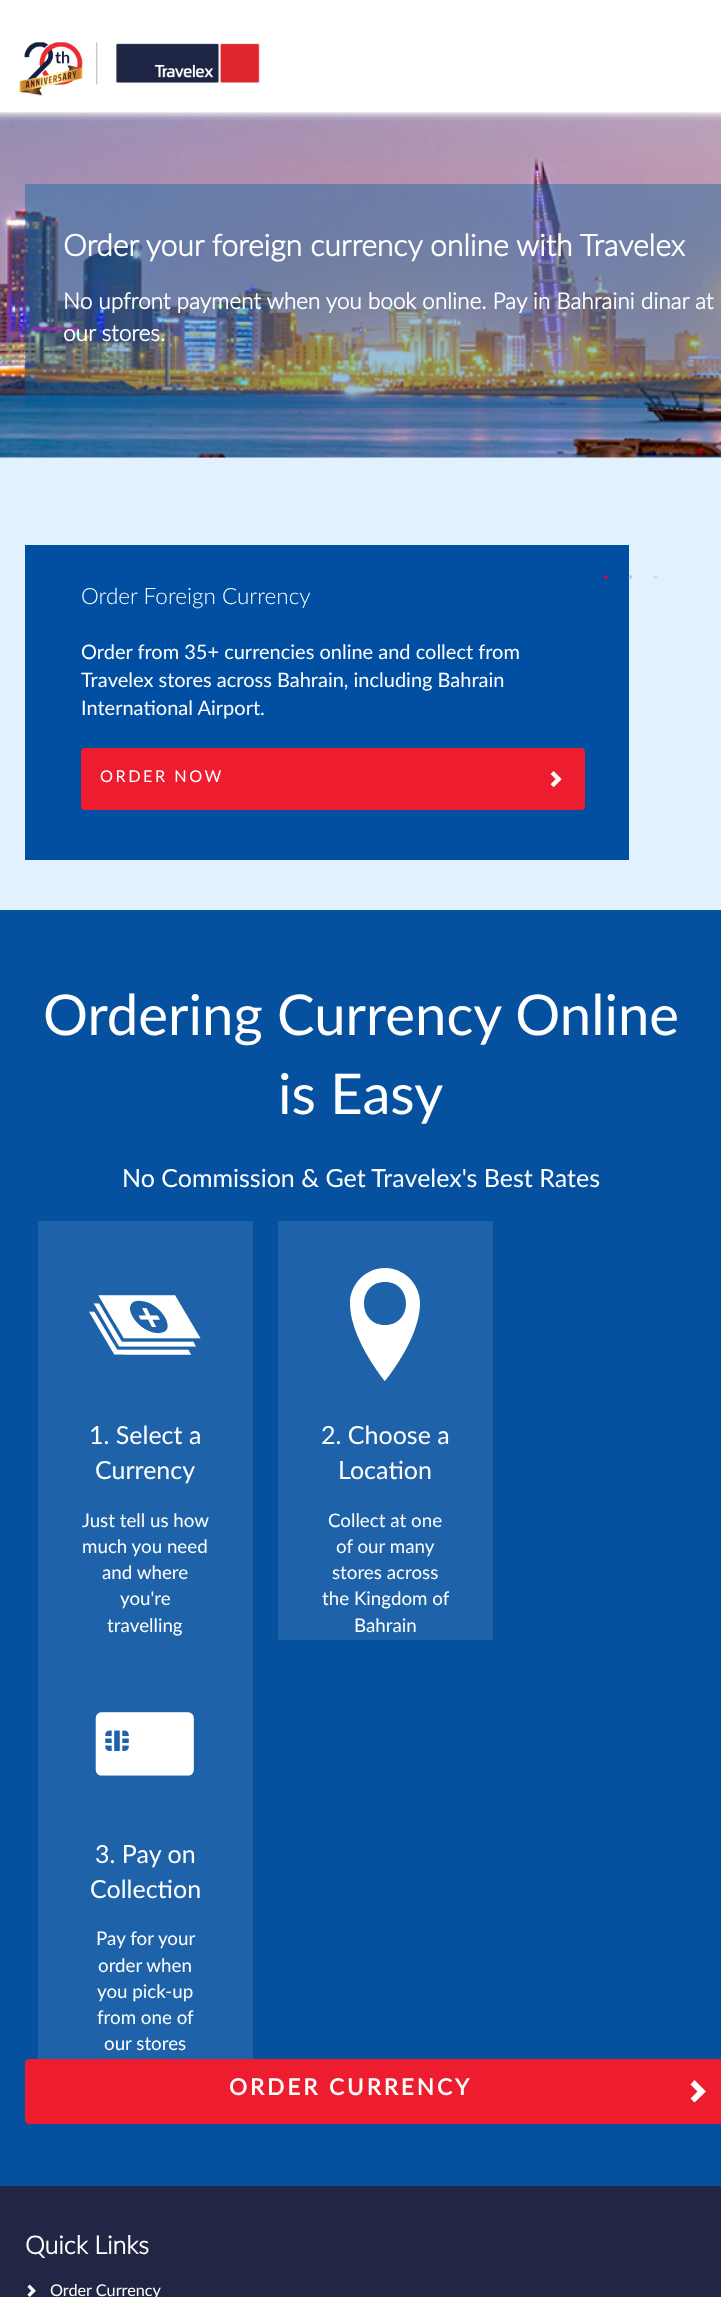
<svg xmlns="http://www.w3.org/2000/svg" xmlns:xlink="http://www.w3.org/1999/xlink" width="721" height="2297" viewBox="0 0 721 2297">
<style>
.cls-1{font:bold 30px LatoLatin;fill:#ffffff}
.cls-2{font:bold 22.5px LatoLatin;fill:#ffffff}
.cls-3{font:15px Liberation Serif;fill:#f00030}
.cls-4{font:15px Liberation Serif;fill:#adccec}
.cls-5{font:15px Liberation Serif;fill:#c3dcf5}
.cls-6{font:300 22.5px LatoLatin;fill:#ffffff}
.cls-7{font:20px LatoLatin;fill:#ffffff}
.cls-8{font:16.25px LatoLatin;letter-spacing:2.5px;fill:#ffffff}
.cls-9{font:56.25px LatoLatin;fill:#ffffff}
.cls-10{font:25px LatoLatin;fill:#ffffff}
.cls-11{font:112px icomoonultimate;fill:#ffffff}
.cls-12{font:18.75px LatoLatin;fill:#ffffff}
.cls-13{font:bold 22.5px 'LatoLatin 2';letter-spacing:3px;fill:#ffffff}
.cls-14{font:bold 25px LatoLatin;fill:#ffffff}
.cls-15{font:16.25px LatoLatin;fill:#ffffff}
</style>
<defs>
<clipPath id="clip1"><path d="M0 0H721V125H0ZM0 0H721V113H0Z" clip-rule="evenodd"/></clipPath>
</defs>
<rect width="100%" height="100%" fill="#ffffff"/>
<rect fill="#e3f1fe" x="0" y="457" width="721" height="453"/>
<image xlink:href="image1.png" x="0" y="112" width="721" height="346"/>
<g clip-path="url(#clip1)">
<rect fill="#eeeeee" filter="blur(3px)" x="-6" y="-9" width="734" height="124"/>
</g>
<image xlink:href="image0.png" x="19" y="42" width="241" height="54"/>
<rect fill="#00629f" fill-opacity="0.4" x="25" y="184" width="696" height="224"/>
<rect fill="#004fa3" x="25" y="545" width="604" height="315"/>
<rect fill="#ed1c2e" x="81" y="748" width="504" height="62" rx="4"/>
<image xlink:href="image2.png" x="550" y="771" width="12" height="17"/>
<rect fill="#05519f" x="0" y="910" width="721" height="1276"/>
<rect fill="#1e63a9" x="38" y="1221" width="215" height="838"/>
<rect fill="#1e63a9" x="278" y="1221" width="215" height="419"/>
<path fill="#ffffff" d="M385 1268C404 1268 420 1284 420 1303C420 1339 385 1381 385 1381C385 1381 350 1339 350 1303C350 1284 366 1268 385 1268ZM385 1325C413 1325 413 1282 385 1282C357 1282 357 1325 385 1325Z"/>
<path fill="#ed1c2e" d="M29 2059H721V2124H29C27 2124 25 2122 25 2120V2063C25 2061 27 2059 29 2059Z"/>
<path fill="#ffffff" d="M694.5 2080L706 2091.5L694.5 2102.5L690.5 2098.5L697.5 2091.5L690.5 2084.5Z"/>
<rect fill="#212644" x="0" y="2186" width="721" height="111"/>
<image xlink:href="image3.png" x="27" y="2284" width="9" height="13"/>
<text class="cls-1" x="63" y="256">Order your foreign currency online with Travelex</text>
<text class="cls-2"><tspan x="63" y="309">No upfront payment when you book online. Pay in Bahraini dinar at</tspan><tspan x="63" y="341">our stores.</tspan></text>
<text class="cls-3" x="603" y="582">•</text>
<text class="cls-4" x="628" y="582">•</text>
<text class="cls-5" x="653" y="582">•</text>
<text class="cls-6" x="81" y="604">Order Foreign Currency</text>
<text class="cls-7"><tspan x="81" y="659">Order from 35+ currencies online and collect from</tspan><tspan x="81" y="687">Travelex stores across Bahrain, including Bahrain</tspan><tspan x="81" y="715">International Airport.</tspan></text>
<text class="cls-8" x="100" y="782">ORDER NOW</text>
<text class="cls-9" x="43" y="1035">Ordering Currency Online</text>
<text class="cls-9" x="278" y="1114">is Easy</text>
<text class="cls-10" x="122" y="1187">No Commission &amp; Get Travelex's Best Rates</text>
<text class="cls-11" x="89" y="1374">*</text>
<text class="cls-10" x="89" y="1444">1. Select a</text>
<text class="cls-10" x="95" y="1479">Currency</text>
<text class="cls-12"><tspan x="82" y="1527">Just tell us how</tspan><tspan x="82" y="1553">much you need</tspan></text>
<text class="cls-12" x="102" y="1579">and where</text>
<text class="cls-12" x="120" y="1605">you're</text>
<text class="cls-12" x="107" y="1632">travelling</text>
<text class="cls-10" x="321" y="1444">2. Choose a</text>
<text class="cls-10" x="338" y="1479">Location</text>
<text class="cls-12" x="328" y="1527">Collect at one</text>
<text class="cls-12" x="336" y="1553">of our many</text>
<text class="cls-12" x="332" y="1579">stores across</text>
<text class="cls-12" x="322" y="1605">the Kingdom of</text>
<text class="cls-12" x="354" y="1632">Bahrain</text>
<text class="cls-11" x="89" y="1793">)</text>
<text class="cls-10" x="95" y="1863">3. Pay on</text>
<text class="cls-10" x="90" y="1898">Collection</text>
<text class="cls-12" x="96" y="1945">Pay for your</text>
<text class="cls-12" x="98" y="1972">order when</text>
<text class="cls-12"><tspan x="97" y="1998">you pick-up</tspan><tspan x="97" y="2024">from one of</tspan></text>
<text class="cls-12" x="104" y="2050">our stores</text>
<text class="cls-13" x="229" y="2095">ORDER CURRENCY</text>
<text class="cls-14" x="25" y="2254">Quick Links</text>
<text class="cls-15" x="50" y="2296">Order Currency</text>
</svg>
